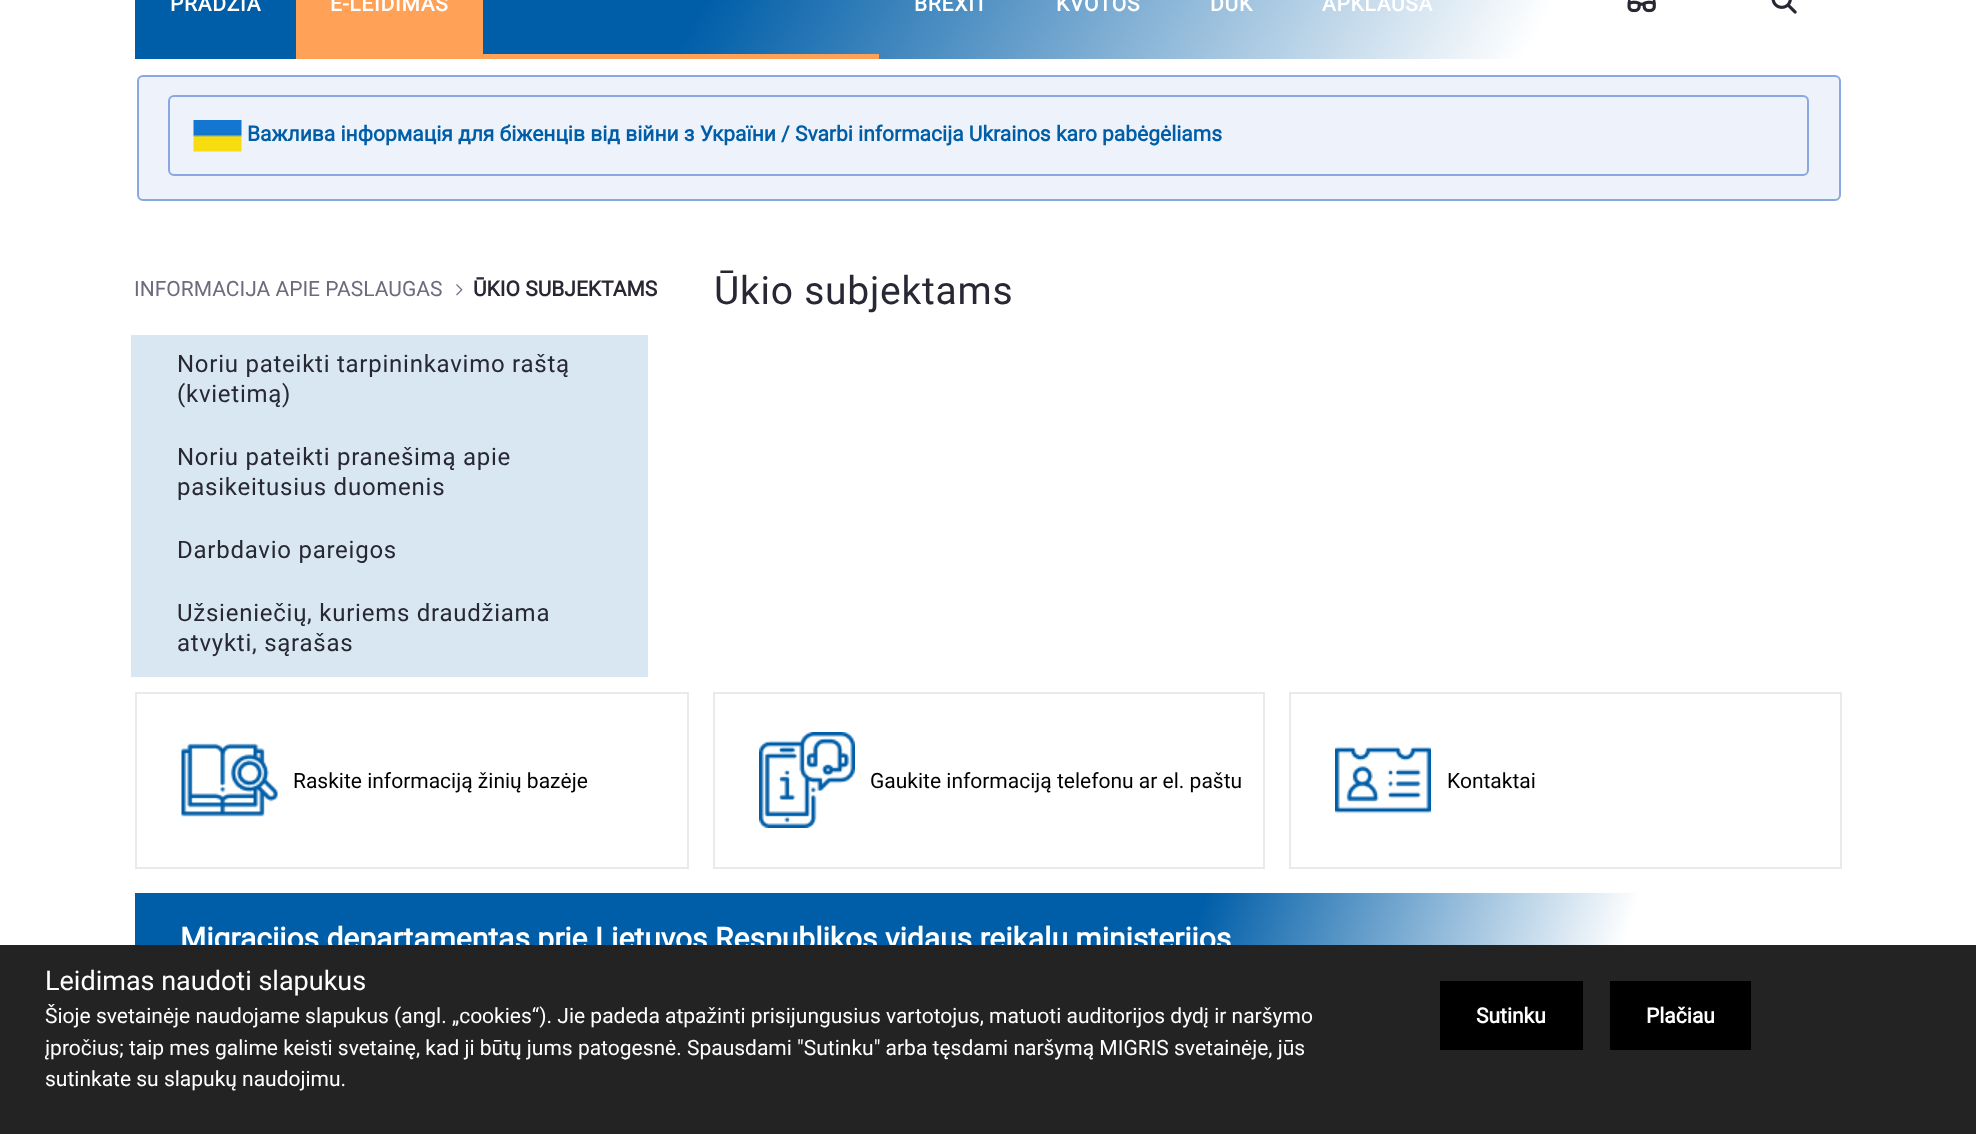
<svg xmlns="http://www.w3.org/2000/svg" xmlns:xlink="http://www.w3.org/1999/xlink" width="1976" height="1134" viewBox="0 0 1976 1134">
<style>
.cls-1{font:bold 21px Roboto;letter-spacing:0.75px;fill:#ffffff}
.cls-2{font:bold 21px Roboto;fill:#005ea8}
.cls-3{font:21px Roboto;fill:#6b6c7e}
.cls-4{font:bold 21px Roboto;fill:#272833}
.cls-5{font:24px Roboto;letter-spacing:0.75px;fill:#272833}
.cls-6{font:39px Roboto;letter-spacing:0.75px;fill:#272833}
.cls-7{font:21px Roboto;fill:#000000}
.cls-8{font:bold 30px Roboto;fill:#ffffff}
.cls-9{font:27px Roboto;fill:#ffffff}
.cls-10{font:21px Roboto;fill:#ffffff}
.cls-11{font:bold 21px Roboto;fill:#ffffff}
</style>
<defs>
<linearGradient id="g1" gradientUnits="userSpaceOnUse" x1="333" y1="-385" x2="1644" y2="392"><stop offset="0.34" stop-color="#005ea8"/><stop offset="0.82" stop-color="#ffffff"/></linearGradient>
<linearGradient id="g2" gradientUnits="userSpaceOnUse" x1="182" y1="759" x2="1795" y2="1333"><stop offset="0.59" stop-color="#005ea8"/><stop offset="0.83" stop-color="#ffffff"/></linearGradient>
</defs>
<rect width="100%" height="100%" fill="#ffffff"/>
<rect fill="url(#g1)" x="135" y="0" width="1414" height="59"/>
<rect fill="#ffa157" x="296" y="0" width="187" height="59"/>
<rect fill="#ffa157" x="483" y="54" width="396" height="5"/>
<image xlink:href="image0.png" x="1627" y="0" width="29" height="13"/>
<image xlink:href="image1.png" x="1771" y="0" width="26" height="14"/>
<rect fill="#eef2fa" stroke="#89a7e0" stroke-width="2" x="138" y="76" width="1702" height="124" rx="5"/>
<rect fill="none" stroke="#89a7e0" stroke-width="2" x="169" y="96" width="1639" height="79" rx="5"/>
<image xlink:href="image2.png" x="193" y="120" width="49" height="32"/>
<image xlink:href="image3.png" x="456" y="284" width="7" height="12"/>
<rect fill="#d9e7f2" x="131" y="335" width="517" height="342"/>
<rect fill="none" stroke="#eaeaea" stroke-width="2" x="136" y="693" width="552" height="175"/>
<image xlink:href="image4.png" x="181" y="743" width="97" height="74"/>
<rect fill="none" stroke="#eaeaea" stroke-width="2" x="714" y="693" width="550" height="175"/>
<image xlink:href="image5.png" x="759" y="732" width="96" height="96"/>
<rect fill="none" stroke="#eaeaea" stroke-width="2" x="1290" y="693" width="551" height="175"/>
<image xlink:href="image6.png" x="1335" y="746" width="96" height="68"/>
<rect fill="url(#g2)" x="135" y="893" width="1503" height="52"/>
<text class="cls-1" x="170" y="11">PRADŽIA</text>
<text class="cls-1" x="330" y="11">E-LEIDIMAS</text>
<text class="cls-1" x="914" y="11">BREXIT</text>
<text class="cls-1" x="1056" y="11">KVOTOS</text>
<text class="cls-1" x="1210" y="11">DUK</text>
<text class="cls-1" x="1322" y="11">APKLAUSA</text>
<text class="cls-2" x="247" y="141">Важлива інформація для біженців від війни з України / Svarbi informacija Ukrainos karo pabėgėliams</text>
<text class="cls-3" x="134" y="296">INFORMACIJA APIE PASLAUGAS</text>
<text class="cls-4" x="473" y="296">ŪKIO SUBJEKTAMS</text>
<text class="cls-5"><tspan x="177" y="372">Noriu pateikti tarpininkavimo raštą</tspan><tspan x="177" y="402">(kvietimą)</tspan></text>
<text class="cls-5"><tspan x="177" y="465">Noriu pateikti pranešimą apie</tspan><tspan x="177" y="495">pasikeitusius duomenis</tspan></text>
<text class="cls-5" x="177" y="558">Darbdavio pareigos</text>
<text class="cls-5"><tspan x="177" y="621">Užsieniečių, kuriems draudžiama</tspan><tspan x="177" y="651">atvykti, sąrašas</tspan></text>
<text class="cls-6" x="714" y="304">Ūkio subjektams</text>
<text class="cls-7" x="293" y="788">Raskite informaciją žinių bazėje</text>
<text class="cls-7" x="870" y="788">Gaukite informaciją telefonu ar el. paštu</text>
<text class="cls-7" x="1447" y="788">Kontaktai</text>
<text class="cls-8" x="180" y="949">Migracijos departamentas prie Lietuvos Respublikos vidaus reikalų ministerijos</text>
<rect fill="#232323" x="0" y="945" width="1976" height="189"/>
<text class="cls-9" x="45" y="990">Leidimas naudoti slapukus</text>
<text class="cls-10"><tspan x="45" y="1023">Šioje svetainėje naudojame slapukus (angl. „cookies“). Jie padeda atpažinti prisijungusius vartotojus, matuoti auditorijos dydį ir naršymo</tspan><tspan x="45" y="1055">įpročius; taip mes galime keisti svetainę, kad ji būtų jums patogesnė. Spausdami "Sutinku" arba tęsdami naršymą MIGRIS svetainėje, jūs</tspan><tspan x="45" y="1086">sutinkate su slapukų naudojimu.</tspan></text>
<rect fill="#000000" x="1440" y="981" width="143" height="69"/>
<text class="cls-11" x="1476" y="1023">Sutinku</text>
<rect fill="#000000" x="1610" y="981" width="141" height="69"/>
<text class="cls-11" x="1646" y="1023">Plačiau</text>
</svg>
